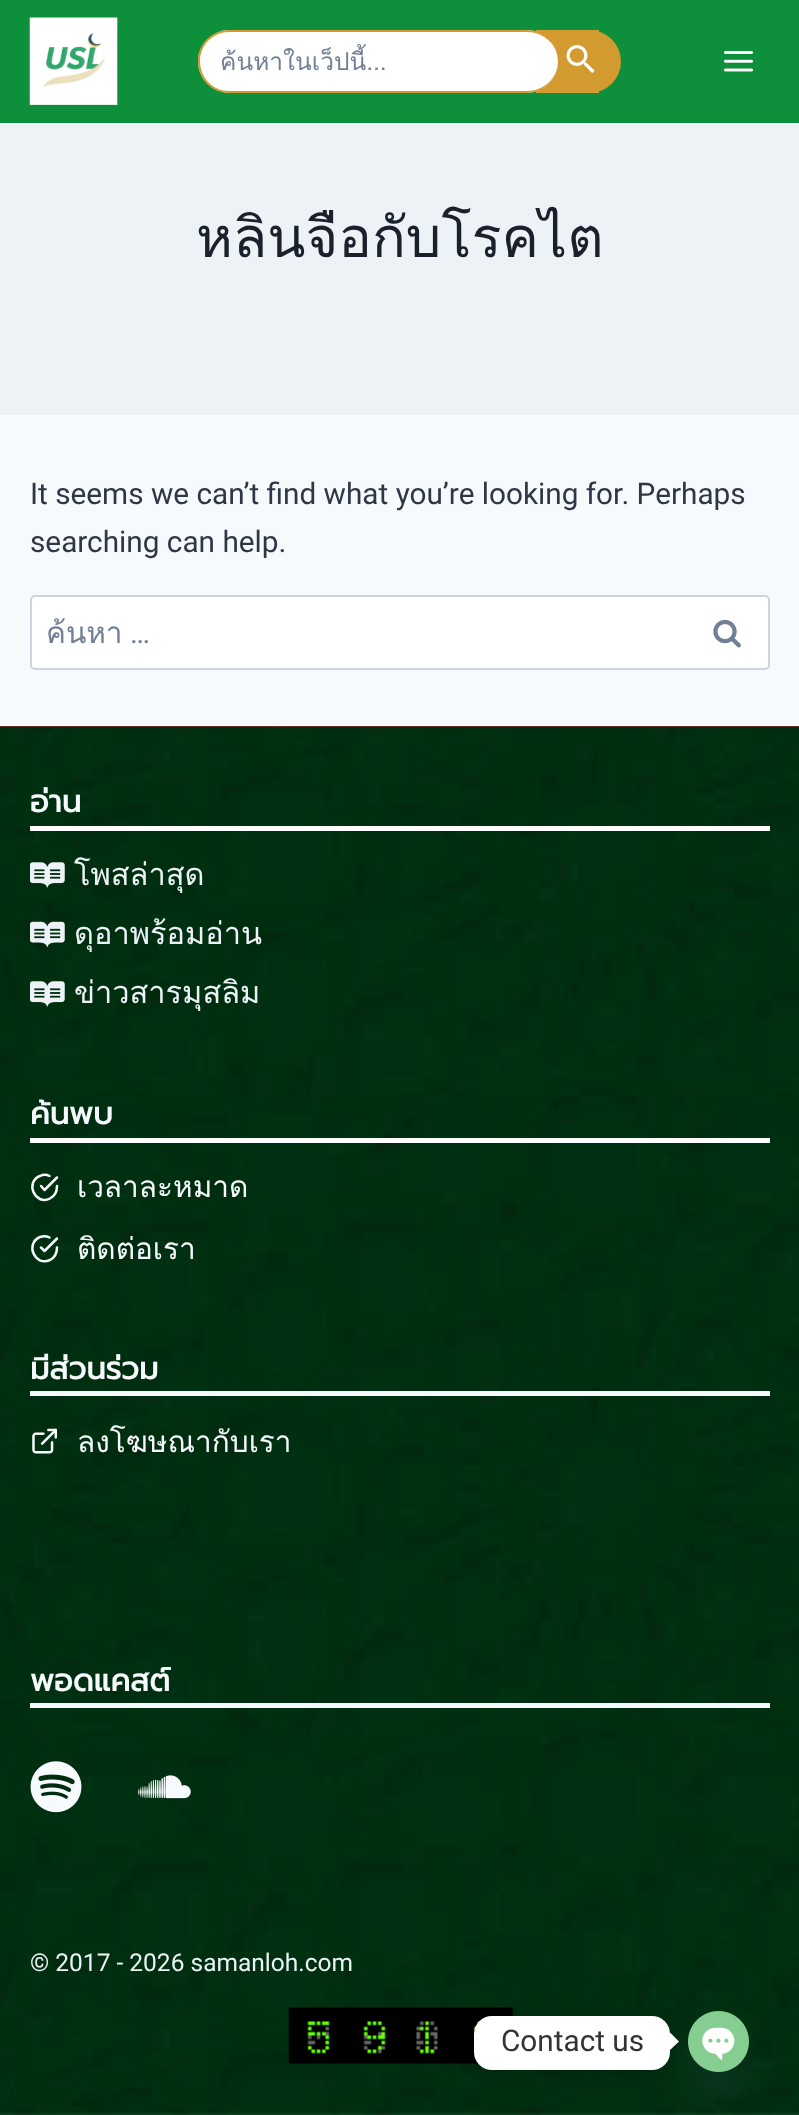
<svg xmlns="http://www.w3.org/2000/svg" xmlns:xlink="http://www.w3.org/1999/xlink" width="799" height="2115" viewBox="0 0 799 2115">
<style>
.cls-1{font:24.5px Loma;fill:#718096}
.cls-2{font:56px Loma;fill:#1a202c}
.cls-3{font:29.75px Roboto;fill:#2d3748}
.cls-4{font:29.75px Loma;fill:#718096}
.cls-5{font:29.75px Roboto;fill:#718096}
.cls-6{font:bold 30.75px Prompt;fill:#f7fafc}
.cls-7{font:30.75px Loma;fill:#edf2f7}
.cls-8{font:29.75px Loma;fill:#f7fafc}
.cls-9{font:24.5px Roboto;fill:#edf2f7}
.cls-10{font:29.75px Roboto;fill:#333333}
</style>
<defs>
<clipPath id="clip1"><rect x="221" y="42" width="316" height="39"/></clipPath>
<clipPath id="clip2"><rect x="47" y="607" width="588" height="48"/></clipPath>
</defs>
<rect width="100%" height="100%" fill="#f7fafc"/>
<rect fill="#0d8f3b" x="0" y="0" width="799" height="123"/>
<image xlink:href="image0.png" x="29" y="17" width="89" height="88"/>
<circle fill="#d39a30" cx="589.5" cy="61.5" r="31.5"/>
<rect fill="#d39a30" x="536" y="30" width="63" height="63"/>
<rect fill="#ffffff" x="198" y="30" width="360" height="63" rx="31.5"/>
<path fill="#d39a30" fill-rule="evenodd" d="M229 30H527C544 30 558 44 558 61C558 79 544 93 527 93H229C212 93 198 79 198 61C198 44 212 30 229 30ZM229 32H527C544 32 558 45 558 61C558 78 544 91 527 91H229C213 91 200 78 200 61C200 45 213 32 229 32Z"/>
<image xlink:href="image1.png" x="566" y="45" width="29" height="28"/>
<image xlink:href="image2.png" x="723" y="51" width="31" height="21"/>
<rect fill="#edf2f7" x="0" y="123" width="799" height="292"/>
<rect fill="#ffffff" stroke="#cbd5e0" stroke-width="2" x="31" y="596" width="738" height="73" rx="4"/>
<image xlink:href="image3.png" x="713" y="619" width="28" height="29"/>
<rect fill="#c13131" x="0" y="726" width="799" height="1"/>
<image xlink:href="image4.png" x="0" y="726" width="799" height="1389"/>
<rect fill="#ffffff" x="30" y="826" width="740" height="5"/>
<image xlink:href="image5.png" x="30" y="862" width="35" height="26"/>
<image xlink:href="image6.png" x="30" y="921" width="35" height="27"/>
<image xlink:href="image7.png" x="30" y="981" width="35" height="26"/>
<rect fill="#ffffff" x="30" y="1138" width="740" height="5"/>
<path fill="none" stroke="#f7fafc" stroke-width="2.5" stroke-linecap="round" stroke-linejoin="round" d="M57 1186C57 1191.5 55 1196 50 1198.5C35 1206 24.5 1182 40 1176C43 1174.5 46.5 1174.5 49.5 1176M57 1177.5L44.5 1190L41 1186"/>
<path fill="none" stroke="#f7fafc" stroke-width="2.5" stroke-linecap="round" stroke-linejoin="round" d="M57 1247.5C57 1252.5 55 1257.5 50 1260C35 1267 24.5 1243.5 40 1237C43 1236 46.5 1236 49.5 1237.5M57 1238.5L44.5 1251L41 1247.5"/>
<rect fill="#f7fafc" x="30" y="1391" width="740" height="5"/>
<image xlink:href="image8.png" x="32" y="1428" width="26" height="26"/>
<rect fill="#f7fafc" x="30" y="1703" width="740" height="5"/>
<image xlink:href="image9.png" x="30" y="1761" width="52" height="52"/>
<image xlink:href="image10.png" x="138" y="1775" width="53" height="24"/>
<image xlink:href="image11.png" x="288" y="2007" width="225" height="57"/>
<rect fill="#000000" fill-opacity="0.15" filter="blur(7px)" x="474" y="2018" width="196" height="54" rx="18"/>
<rect fill="#ffffff" x="474" y="2016" width="196" height="54" rx="18"/>
<path fill="#ffffff" d="M670 2050V2032.5L679 2041.5Z"/>
<rect fill="#49687e" fill-opacity="0.16" filter="blur(21px)" x="688" y="2039" width="61" height="61" rx="30.5"/>
<image xlink:href="image12.png" x="688" y="2011" width="61" height="61"/>
<g clip-path="url(#clip1)">
<text class="cls-1" x="220" y="70">ค้นหาในเว็ปนี้...</text>
</g>
<text class="cls-2" x="196" y="257">หลินจือกับโรคไต</text>
<text class="cls-3"><tspan x="30" y="504">It seems we can’t find what you’re looking for. Perhaps</tspan><tspan x="30" y="552">searching can help.</tspan></text>
<g clip-path="url(#clip2)">
<text class="cls-4" x="46" y="643">ค้นหา</text>
</g>
<text class="cls-5" x="130" y="643">…</text>
<text class="cls-6" x="30" y="812">อ่าน</text>
<text class="cls-7"><tspan x="74" y="885">โพสล่าสุด</tspan><tspan x="74" y="944">ดุอาพร้อมอ่าน</tspan><tspan x="74" y="1003">ข่าวสารมุสลิม</tspan></text>
<text class="cls-6" x="30" y="1124">ค้นพบ</text>
<text class="cls-8" x="77" y="1197">เวลาละหมาด</text>
<text class="cls-8" x="77" y="1259">ติดต่อเรา</text>
<text class="cls-6" x="30" y="1379">มีส่วนร่วม</text>
<text class="cls-8" x="77" y="1452">ลงโฆษณากับเรา</text>
<text class="cls-6" x="30" y="1691">พอดแคสต์</text>
<text class="cls-9" x="30" y="1971">© 2017 - 2026 samanloh.com</text>
<text class="cls-10" x="501" y="2051">Contact us</text>
</svg>
